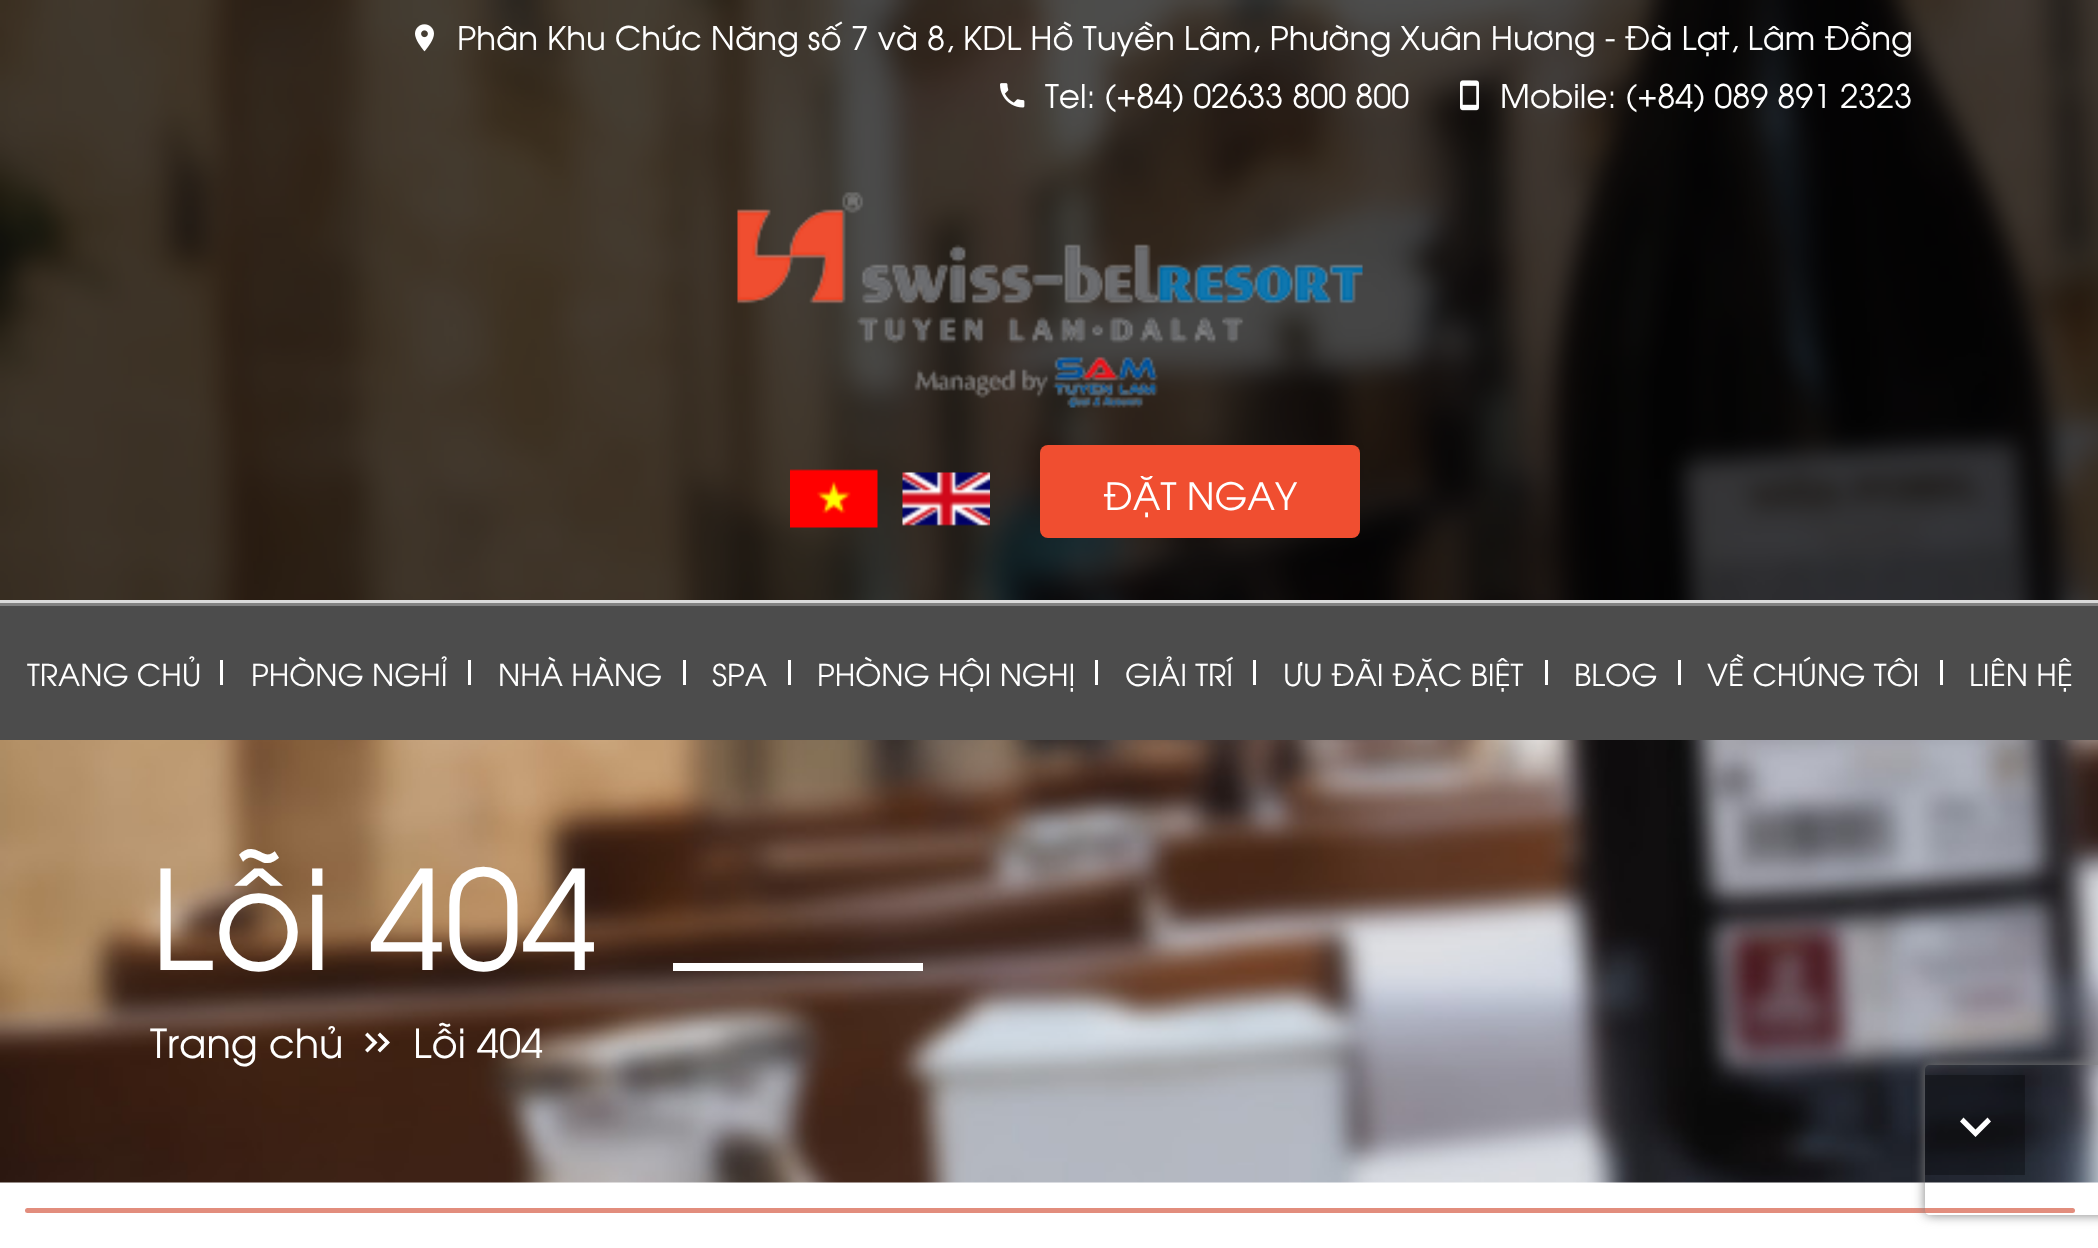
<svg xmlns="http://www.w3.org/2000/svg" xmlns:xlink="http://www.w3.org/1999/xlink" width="2098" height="1248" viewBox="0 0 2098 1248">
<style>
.cls-1{font:32.5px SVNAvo;fill:#ffffff}
.cls-2{font:37.5px SVNAvo;fill:#ffffff}
.cls-3{font:30px SVNAvo;fill:#ffffff}
.cls-4{font:137.5px SVNAvo;fill:#ffffff}
.cls-5{font:40px SVNAvo;fill:#ffffff}
</style>
<defs>
<clipPath id="clip1"><path d="M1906 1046H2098V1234H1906ZM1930 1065H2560C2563 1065 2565 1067 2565 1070V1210C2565 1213 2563 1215 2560 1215H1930C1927 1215 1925 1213 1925 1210V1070C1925 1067 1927 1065 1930 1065Z" clip-rule="evenodd"/></clipPath>
</defs>
<rect width="100%" height="100%" fill="#ffffff"/>
<image xlink:href="image6.png" x="0" y="0" width="2098" height="1183"/>
<rect fill="#000000" fill-opacity="0.7" x="0" y="0" width="2098" height="128"/>
<image xlink:href="image0.png" x="415" y="24" width="19" height="28"/>
<image xlink:href="image1.png" x="1000" y="83" width="25" height="25"/>
<image xlink:href="image2.png" x="1460" y="80" width="19" height="31"/>
<rect fill="#000000" fill-opacity="0.7" x="0" y="128" width="2098" height="472"/>
<rect fill="#dadada" x="0" y="600" width="2098" height="3"/>
<image xlink:href="image3.png" x="737" y="192" width="626" height="216"/>
<image xlink:href="image4.png" x="790" y="469" width="88" height="59"/>
<image xlink:href="image5.png" x="902" y="472" width="88" height="54"/>
<rect fill="#f04e30" x="1040" y="445" width="320" height="93" rx="8"/>
<rect fill="#4c4c4c" x="0" y="606" width="2098" height="134"/>
<rect fill="#818181" x="0" y="603" width="2098" height="3"/>
<rect fill="#ffffff" x="220" y="660" width="3" height="25"/>
<rect fill="#ffffff" x="468" y="660" width="3" height="25"/>
<rect fill="#ffffff" x="683" y="660" width="3" height="25"/>
<rect fill="#ffffff" x="788" y="660" width="3" height="25"/>
<rect fill="#ffffff" x="1095" y="660" width="3" height="25"/>
<rect fill="#ffffff" x="1253" y="660" width="3" height="25"/>
<rect fill="#ffffff" x="1545" y="660" width="3" height="25"/>
<rect fill="#ffffff" x="1678" y="660" width="3" height="25"/>
<rect fill="#ffffff" x="1940" y="660" width="3" height="25"/>
<rect fill="#ffffff" x="673" y="963" width="250" height="8"/>
<path fill="#ffffff" d="M367.5 1032.5L377.5 1042.5L367.5 1052.5L365 1050L372.5 1042.5L365 1035Z"/>
<path fill="#ffffff" d="M380 1032.5L390 1042.5L380 1052.5L377.5 1050L385 1042.5L377.5 1035Z"/>
<rect fill="#000000" fill-opacity="0.3" x="1925" y="1075" width="100" height="100"/>
<path fill="#ffffff" d="M1987.5 1117.5L1991 1121.5L1975.5 1137L1960 1121.5L1963.5 1117.5L1975.5 1129.5Z"/>
<rect fill="#e28d7d" x="25" y="1208" width="2050" height="5" rx="2.5"/>
<g clip-path="url(#clip1)">
<rect fill="#808080" filter="blur(6px)" x="1925" y="1065" width="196" height="150" rx="5"/>
</g>
<text class="cls-1" x="457" y="50">Phân Khu Chức Năng số 7 và 8, KDL Hồ Tuyền Lâm, Phường Xuân Hương - Đà Lạt, Lâm Đồng</text>
<text class="cls-1" x="1045" y="108">Tel: (+84) 02633 800 800</text>
<text class="cls-1" x="1500" y="108">Mobile: (+84) 089 891 2323</text>
<text class="cls-2" x="1103" y="510">ĐẶT NGAY</text>
<text class="cls-3" x="27" y="686">TRANG CHỦ</text>
<text class="cls-3" x="251" y="686">PHÒNG NGHỈ</text>
<text class="cls-3" x="498" y="686">NHÀ HÀNG</text>
<text class="cls-3" x="712" y="686">SPA</text>
<text class="cls-3" x="817" y="686">PHÒNG HỘI NGHỊ</text>
<text class="cls-3" x="1125" y="686">GIẢI TRÍ</text>
<text class="cls-3" x="1283" y="686">ƯU ĐÃI ĐẶC BIỆT</text>
<text class="cls-3" x="1574" y="686">BLOG</text>
<text class="cls-3" x="1707" y="686">VỀ CHÚNG TÔI</text>
<text class="cls-3" x="1969" y="686">LIÊN HỆ</text>
<text class="cls-4" x="150" y="970">Lỗi 404</text>
<text class="cls-5" x="150" y="1058">Trang chủ</text>
<text class="cls-5" x="413" y="1058">Lỗi 404</text>
</svg>
